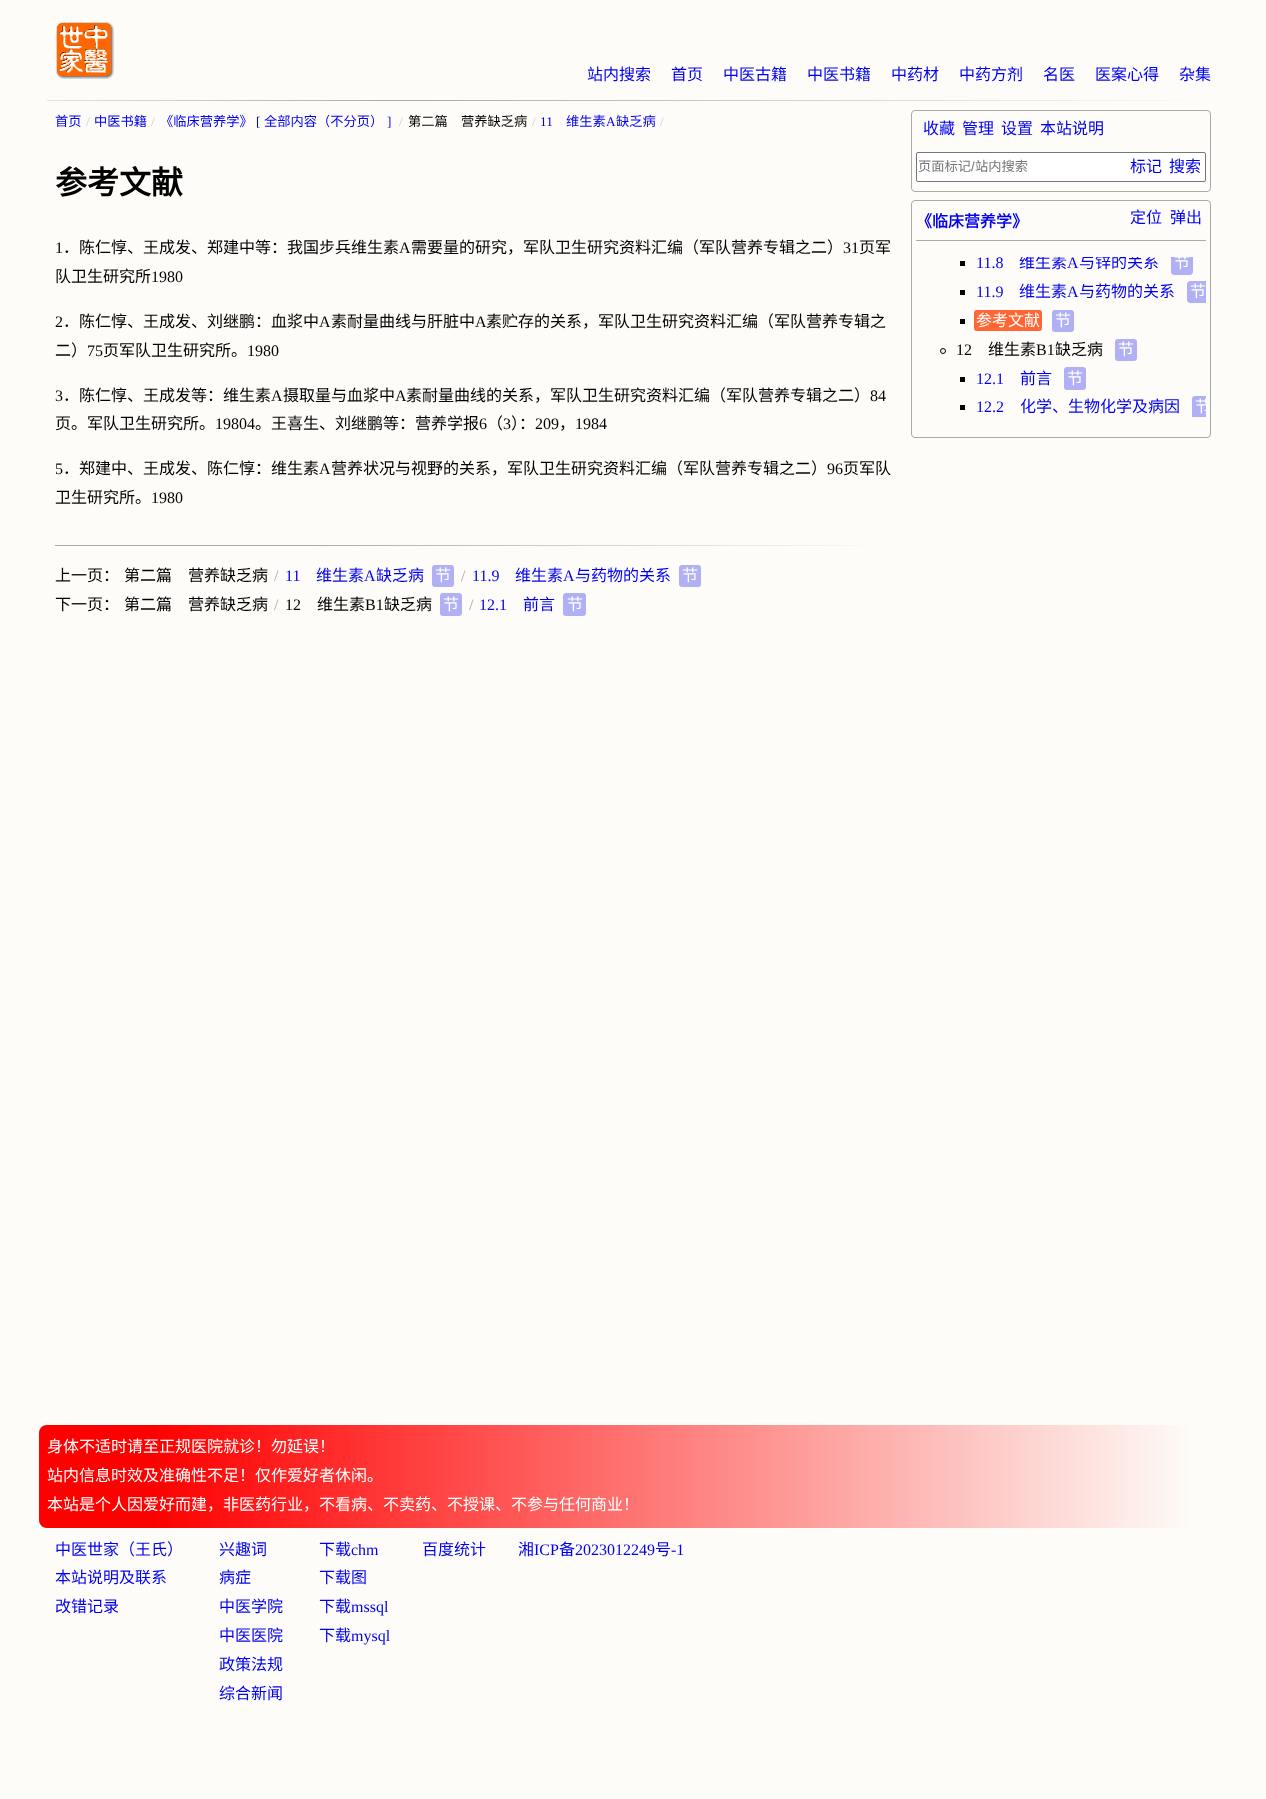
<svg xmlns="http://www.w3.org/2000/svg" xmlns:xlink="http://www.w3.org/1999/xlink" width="1266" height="1799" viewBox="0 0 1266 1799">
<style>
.cls-1{font:16px Noto Sans CJK SC;fill:#0000ee}
.cls-2{font:13.25px Noto Sans CJK SC;fill:#0000ee}
.cls-3{font:13.25px Liberation Serif;fill:#cccccc}
.cls-4{font:13.25px Liberation Serif;fill:#0000ee}
.cls-5{font:13.25px Noto Sans CJK SC;fill:#000000}
.cls-6{font:bold 32px Noto Sans CJK SC;fill:#000000}
.cls-7{font:16px Liberation Serif;fill:#000000}
.cls-8{font:16px Noto Sans CJK SC;fill:#000000}
.cls-9{font:16px Liberation Serif;fill:#aaaaaa}
.cls-10{font:16px Liberation Serif;fill:#0000ee}
.cls-11{font:16px Noto Sans CJK SC;fill:#ffffff}
.cls-12{font:13.25px Noto Sans CJK SC;fill:#757575}
.cls-13{font:13.25px Liberation Sans;fill:#757575}
.cls-14{font:bold 16px Noto Sans CJK SC;fill:#0000ee}
</style>
<defs>
<clipPath id="clip1"><rect x="916" y="257" width="290" height="160"/></clipPath>
<linearGradient id="g1" gradientUnits="userSpaceOnUse" x1="39" y1="1477" x2="1195" y2="1477"><stop offset="0.1" stop-color="#ff0000"/><stop offset="1" stop-color="#fdfcf8"/></linearGradient>
</defs>
<rect width="100%" height="100%" fill="#fdfcf8"/>
<image xlink:href="image0.png" x="47" y="100" width="1136" height="1"/>
<image xlink:href="image1.png" x="56" y="22" width="58" height="57"/>
<image xlink:href="image2.png" x="55" y="545" width="806" height="1"/>
<rect fill="#b1b0f5" x="432" y="565" width="22" height="22" rx="3"/>
<rect fill="#b1b0f5" x="679" y="565" width="22" height="22" rx="3"/>
<rect fill="#b1b0f5" x="440" y="593" width="22" height="23" rx="3"/>
<rect fill="#b1b0f5" x="563" y="593" width="23" height="23" rx="3"/>
<rect fill="none" stroke="#aaaaaa" x="911.5" y="110.5" width="299" height="81" rx="3.5"/>
<rect fill="#ffffff" stroke="#767676" x="916.5" y="152.5" width="289" height="29" rx="1.5"/>
<rect fill="none" stroke="#aaaaaa" x="911.5" y="200.5" width="299" height="237" rx="3.5"/>
<rect fill="#aaaaaa" x="916" y="240" width="290" height="1"/>
<rect fill="#000000" x="960" y="261" width="5" height="5"/>
<path fill="#b1b0f5" d="M1171 257H1193V272C1193 273.5 1191.5 275 1190 275H1174C1172.5 275 1171 273.5 1171 272Z"/>
<rect fill="#000000" x="960" y="290" width="5" height="5"/>
<path fill="#b1b0f5" d="M1190 281H1206V303H1190C1188.5 303 1187 301.5 1187 300V284C1187 282.5 1188.5 281 1190 281Z"/>
<rect fill="#000000" x="960" y="319" width="5" height="5"/>
<rect fill="none" stroke="#ff6633" stroke-width="2" x="975" y="311" width="66" height="19" rx="2"/>
<rect fill="#ff6633" x="976" y="312" width="64" height="17" rx="1"/>
<rect fill="#b1b0f5" x="1052" y="310" width="22" height="22" rx="3"/>
<circle fill="none" stroke="#000000" cx="943" cy="351" r="2.5"/>
<rect fill="#b1b0f5" x="1115" y="339" width="22" height="22" rx="3"/>
<rect fill="#000000" x="960" y="377" width="5" height="5"/>
<rect fill="#b1b0f5" x="1064" y="367" width="22" height="23" rx="3"/>
<rect fill="#000000" x="960" y="405" width="5" height="5"/>
<g clip-path="url(#clip1)">
<rect fill="#b1b0f5" x="1192" y="396" width="22" height="23" rx="3"/>
</g>
<path fill="url(#g1)" d="M47 1425H1195V1528H47C42.5 1528 39 1524.5 39 1520V1433C39 1428.5 42.5 1425 47 1425Z"/>
<text class="cls-1" x="587" y="80">站内搜索</text>
<text class="cls-1" x="671" y="80">首页</text>
<text class="cls-1" x="723" y="80">中医古籍</text>
<text class="cls-1" x="807" y="80">中医书籍</text>
<text class="cls-1" x="891" y="80">中药材</text>
<text class="cls-1" x="959" y="80">中药方剂</text>
<text class="cls-1" x="1043" y="80">名医</text>
<text class="cls-1" x="1095" y="80">医案心得</text>
<text class="cls-1" x="1179" y="80">杂集</text>
<text class="cls-2" x="55" y="126">首页</text>
<text class="cls-3" x="86" y="126">/</text>
<text class="cls-2" x="94" y="126">中医书籍</text>
<text class="cls-3" x="151" y="126">/</text>
<text class="cls-2" x="160" y="126">《临床营养学》</text>
<text class="cls-4" x="256" y="126">[</text>
<text class="cls-2" x="264" y="126">全部内容（不分页）</text>
<text class="cls-4" x="387" y="126">]</text>
<text class="cls-3" x="399" y="126">/</text>
<text class="cls-5" x="408" y="126">第二篇　营养缺乏病</text>
<text class="cls-3" x="532" y="126">/</text>
<text class="cls-4" x="540" y="126">11</text>
<text class="cls-2" x="566" y="126">维生素</text>
<text class="cls-4" x="606" y="126">A</text>
<text class="cls-2" x="616" y="126">缺乏病</text>
<text class="cls-3" x="660" y="126">/</text>
<text class="cls-6" x="55" y="194">参考文献</text>
<text class="cls-7" x="55" y="253">1</text>
<text class="cls-8" x="63" y="253">．陈仁惇、王成发、郑建中等：我国步兵维生素</text>
<text class="cls-7" x="399" y="253">A</text>
<text class="cls-8" x="411" y="253">需要量的研究，军队卫生研究资料汇编（军队营养专辑之二）</text>
<text class="cls-7" x="843" y="253">31</text>
<text class="cls-8" x="859" y="253">页军</text>
<text class="cls-8" x="55" y="282">队卫生研究所</text>
<text class="cls-7" x="151" y="282">1980</text>
<text class="cls-7" x="55" y="327">2</text>
<text class="cls-8" x="63" y="327">．陈仁惇、王成发、刘继鹏：血浆中</text>
<text class="cls-7" x="319" y="327">A</text>
<text class="cls-8" x="331" y="327">素耐量曲线与肝脏中</text>
<text class="cls-7" x="475" y="327">A</text>
<text class="cls-8" x="486" y="327">素贮存的关系，军队卫生研究资料汇编（军队营养专辑之</text>
<text class="cls-8" x="55" y="356">二）</text>
<text class="cls-7" x="87" y="356">75</text>
<text class="cls-8" x="103" y="356">页军队卫生研究所。</text>
<text class="cls-7" x="247" y="356">1980</text>
<text class="cls-7" x="55" y="401">3</text>
<text class="cls-8" x="63" y="401">．陈仁惇、王成发等：维生素</text>
<text class="cls-7" x="271" y="401">A</text>
<text class="cls-8" x="283" y="401">摄取量与血浆中</text>
<text class="cls-7" x="395" y="401">A</text>
<text class="cls-8" x="406" y="401">素耐量曲线的关系，军队卫生研究资料汇编（军队营养专辑之二）</text>
<text class="cls-7" x="870" y="401">84</text>
<text class="cls-8" x="55" y="429">页。军队卫生研究所。</text>
<text class="cls-7" x="215" y="429">19804</text>
<text class="cls-8" x="255" y="429">。王喜生、刘继鹏等：营养学报</text>
<text class="cls-7" x="479" y="429">6</text>
<text class="cls-8" x="487" y="429">（</text>
<text class="cls-7" x="503" y="429">3</text>
<text class="cls-8" x="511" y="429">）：</text>
<text class="cls-7" x="535" y="429">209</text>
<text class="cls-8" x="559" y="429">，</text>
<text class="cls-7" x="575" y="429">1984</text>
<text class="cls-7" x="55" y="474">5</text>
<text class="cls-8" x="63" y="474">．郑建中、王成发、陈仁惇：维生素</text>
<text class="cls-7" x="319" y="474">A</text>
<text class="cls-8" x="331" y="474">营养状况与视野的关系，军队卫生研究资料汇编（军队营养专辑之二）</text>
<text class="cls-7" x="827" y="474">96</text>
<text class="cls-8" x="843" y="474">页军队</text>
<text class="cls-8" x="55" y="503">卫生研究所。</text>
<text class="cls-7" x="151" y="503">1980</text>
<text class="cls-8" x="55" y="581">上一页：</text>
<text class="cls-8" x="124" y="581">第二篇　营养缺乏病</text>
<text class="cls-9" x="274" y="581">/</text>
<text class="cls-10" x="285" y="581">11</text>
<text class="cls-1" x="316" y="581">维生素</text>
<text class="cls-10" x="364" y="581">A</text>
<text class="cls-1" x="376" y="581">缺乏病</text>
<text class="cls-11" x="435" y="581">节</text>
<text class="cls-9" x="461" y="581">/</text>
<text class="cls-10" x="472" y="581">11.9</text>
<text class="cls-1" x="515" y="581">维生素</text>
<text class="cls-10" x="563" y="581">A</text>
<text class="cls-1" x="575" y="581">与药物的关系</text>
<text class="cls-11" x="682" y="581">节</text>
<text class="cls-8" x="55" y="610">下一页：</text>
<text class="cls-8" x="124" y="610">第二篇　营养缺乏病</text>
<text class="cls-9" x="274" y="610">/</text>
<text class="cls-7" x="285" y="610">12</text>
<text class="cls-8" x="317" y="610">维生素</text>
<text class="cls-7" x="365" y="610">B1</text>
<text class="cls-8" x="384" y="610">缺乏病</text>
<text class="cls-11" x="443" y="610">节</text>
<text class="cls-9" x="469" y="610">/</text>
<text class="cls-10" x="479" y="610">12.1</text>
<text class="cls-1" x="523" y="610">前言</text>
<text class="cls-11" x="567" y="610">节</text>
<text class="cls-1" x="923" y="134">收藏</text>
<text class="cls-1" x="962" y="134">管理</text>
<text class="cls-1" x="1001" y="134">设置</text>
<text class="cls-1" x="1040" y="134">本站说明</text>
<text class="cls-12" x="918" y="171">页面标记</text>
<text class="cls-13" x="971" y="171">/</text>
<text class="cls-12" x="975" y="171">站内搜索</text>
<text class="cls-1" x="1130" y="172">标记</text>
<text class="cls-1" x="1169" y="172">搜索</text>
<text class="cls-14" x="916" y="227">《临床营养学》</text>
<text class="cls-1" x="1130" y="223">定位</text>
<text class="cls-1" x="1170" y="223">弹出</text>
<text class="cls-10" x="976" y="268">11.8</text>
<g clip-path="url(#clip1)">
<text class="cls-1" x="1019" y="268">维生素</text>
</g>
<text class="cls-10" x="1067" y="268">A</text>
<g clip-path="url(#clip1)">
<text class="cls-1" x="1079" y="268">与锌的关系</text>
<text class="cls-11" x="1174" y="268">节</text>
</g>
<text class="cls-10" x="976" y="297">11.9</text>
<text class="cls-1" x="1019" y="297">维生素</text>
<text class="cls-10" x="1067" y="297">A</text>
<text class="cls-1" x="1079" y="297">与药物的关系</text>
<text class="cls-11" x="1190" y="297">节</text>
<text class="cls-11" x="976" y="326">参考文献</text>
<text class="cls-11" x="1055" y="326">节</text>
<text class="cls-7" x="956" y="355">12</text>
<text class="cls-8" x="988" y="355">维生素</text>
<text class="cls-7" x="1036" y="355">B1</text>
<text class="cls-8" x="1055" y="355">缺乏病</text>
<text class="cls-11" x="1118" y="355">节</text>
<text class="cls-10" x="976" y="384">12.1</text>
<text class="cls-1" x="1020" y="384">前言</text>
<text class="cls-11" x="1067" y="384">节</text>
<text class="cls-10" x="976" y="412">12.2</text>
<text class="cls-1" x="1020" y="412">化学、生物化学及病因</text>
<g clip-path="url(#clip1)">
<text class="cls-11" x="1195" y="412">节</text>
</g>
<text class="cls-11"><tspan x="47" y="1452">身体不适时请至正规医院就诊！勿延误！</tspan><tspan x="47" y="1481">站内信息时效及准确性不足！仅作爱好者休闲。</tspan><tspan x="47" y="1510">本站是个人因爱好而建，非医药行业，不看病、不卖药、不授课、不参与任何商业！</tspan></text>
<text class="cls-1"><tspan x="55" y="1555">中医世家（王氏）</tspan><tspan x="55" y="1583">本站说明及联系</tspan><tspan x="55" y="1612">改错记录</tspan></text>
<text class="cls-1"><tspan x="219" y="1555">兴趣词</tspan><tspan x="219" y="1583">病症</tspan><tspan x="219" y="1612">中医学院</tspan><tspan x="219" y="1641">中医医院</tspan><tspan x="219" y="1670">政策法规</tspan><tspan x="219" y="1699">综合新闻</tspan></text>
<text class="cls-1" x="319" y="1555">下载</text>
<text class="cls-10" x="351" y="1555">chm</text>
<text class="cls-1"><tspan x="319" y="1583">下载图</tspan><tspan x="319" y="1612">下载</tspan></text>
<text class="cls-10" x="351" y="1612">mssql</text>
<text class="cls-1" x="319" y="1641">下载</text>
<text class="cls-10" x="351" y="1641">mysql</text>
<text class="cls-1" x="422" y="1555">百度统计</text>
<text class="cls-1" x="518" y="1555">湘</text>
<text class="cls-10" x="534" y="1555">ICP</text>
<text class="cls-1" x="559" y="1555">备</text>
<text class="cls-10" x="575" y="1555">2023012249</text>
<text class="cls-1" x="655" y="1555">号</text>
<text class="cls-10" x="671" y="1555">-1</text>
</svg>
